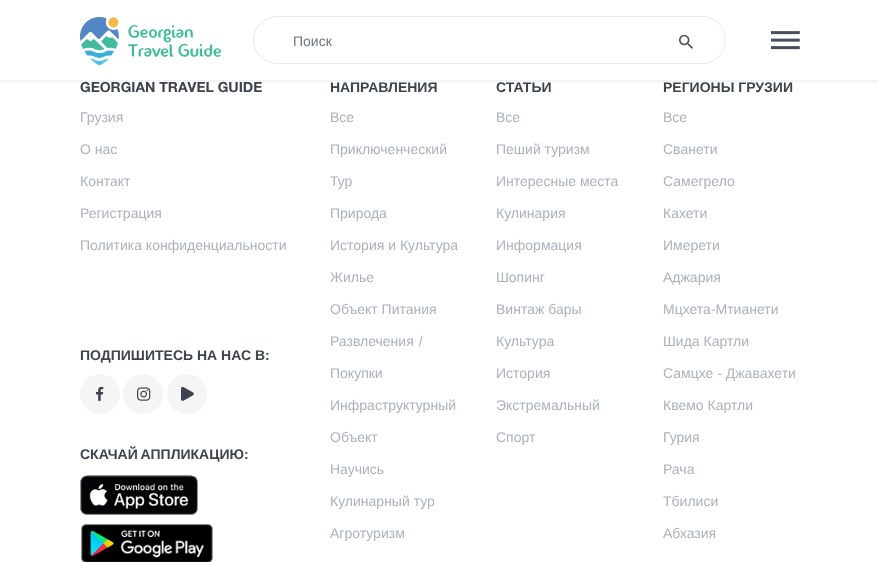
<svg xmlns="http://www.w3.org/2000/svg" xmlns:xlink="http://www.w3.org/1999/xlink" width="879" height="562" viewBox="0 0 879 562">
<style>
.cls-1{font:14px Liberation Sans;fill:#6c757d}
.cls-2{font:bold 14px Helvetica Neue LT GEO;fill:#3d444d}
.cls-3{font:14px Liberation Sans;fill:#aab2bd}
.cls-4{font:bold 14px Liberation Sans;fill:#3d444d}
</style>
<defs>
<clipPath id="clip1"><rect x="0" y="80" width="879" height="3"/></clipPath>
</defs>
<rect width="100%" height="100%" fill="#ffffff"/>
<g clip-path="url(#clip1)">
<rect fill="#484f58" fill-opacity="0.08" filter="blur(1px)" x="0" y="2" width="879" height="80"/>
</g>
<image xlink:href="image0.png" x="80" y="17" width="141" height="48"/>
<rect fill="none" stroke="#e9eaeb" x="253.5" y="16.5" width="472" height="47" rx="23.5"/>
<image xlink:href="image1.png" x="679" y="34" width="14" height="15"/>
<image xlink:href="image2.png" x="771" y="31" width="29" height="19"/>
<circle fill="#f5f5f5" cx="100" cy="394" r="20"/>
<image xlink:href="image3.png" x="96" y="386" width="8" height="15"/>
<circle fill="#f5f5f5" cx="143" cy="394" r="20"/>
<image xlink:href="image4.png" x="137" y="387" width="14" height="14"/>
<circle fill="#f5f5f5" cx="187" cy="394" r="20"/>
<image xlink:href="image5.png" x="181" y="386" width="13" height="15"/>
<image xlink:href="image6.png" x="80" y="475" width="118" height="40"/>
<image xlink:href="image7.png" x="80" y="523" width="133" height="39"/>
<text class="cls-1" x="293" y="46">Поиск</text>
<text class="cls-2" x="80" y="92">GEORGIAN TRAVEL GUIDE</text>
<text class="cls-3" x="80" y="122">Грузия</text>
<text class="cls-3" x="80" y="154">О нас</text>
<text class="cls-3" x="80" y="186">Контакт</text>
<text class="cls-3" x="80" y="218">Регистрация</text>
<text class="cls-3" x="80" y="250">Политика конфиденциальности</text>
<text class="cls-4" x="80" y="360">ПОДПИШИТЕСЬ НА НАС В:</text>
<text class="cls-4" x="80" y="459" word-spacing="-1">СКАЧАЙ АППЛИКАЦИЮ:</text>
<text class="cls-4" x="330" y="92">НАПРАВЛЕНИЯ</text>
<text class="cls-3" x="330" y="122">Все</text>
<text class="cls-3" x="330" y="154">Приключенческий</text>
<text class="cls-3" x="330" y="186">Тур</text>
<text class="cls-3" x="330" y="218">Природа</text>
<text class="cls-3" x="330" y="250">История и Культура</text>
<text class="cls-3" x="330" y="282">Жилье</text>
<text class="cls-3" x="330" y="314">Объект Питания</text>
<text class="cls-3" x="330" y="346" word-spacing="1">Развлечения /</text>
<text class="cls-3" x="330" y="378">Покупки</text>
<text class="cls-3" x="330" y="410">Инфраструктурный</text>
<text class="cls-3" x="330" y="442">Объект</text>
<text class="cls-3" x="330" y="474">Научись</text>
<text class="cls-3" x="330" y="506">Кулинарный тур</text>
<text class="cls-3" x="330" y="538">Агротуризм</text>
<text class="cls-4" x="496" y="92">СТАТЬИ</text>
<text class="cls-3" x="496" y="122">Все</text>
<text class="cls-3" x="496" y="154">Пеший туризм</text>
<text class="cls-3" x="496" y="186">Интересные места</text>
<text class="cls-3" x="496" y="218">Кулинария</text>
<text class="cls-3" x="496" y="250">Информация</text>
<text class="cls-3" x="496" y="282">Шопинг</text>
<text class="cls-3" x="496" y="314">Винтаж бары</text>
<text class="cls-3" x="496" y="346">Культура</text>
<text class="cls-3" x="496" y="378">История</text>
<text class="cls-3" x="496" y="410">Экстремальный</text>
<text class="cls-3" x="496" y="442">Спорт</text>
<text class="cls-4" x="663" y="92">РЕГИОНЫ ГРУЗИИ</text>
<text class="cls-3" x="663" y="122">Все</text>
<text class="cls-3" x="663" y="154">Сванети</text>
<text class="cls-3" x="663" y="186">Самегрело</text>
<text class="cls-3" x="663" y="218">Кахети</text>
<text class="cls-3" x="663" y="250">Имерети</text>
<text class="cls-3" x="663" y="282">Аджария</text>
<text class="cls-3" x="663" y="314">Мцхета-Мтианети</text>
<text class="cls-3" x="663" y="346">Шида Картли</text>
<text class="cls-3" x="663" y="378">Самцхе - Джавахети</text>
<text class="cls-3" x="663" y="410">Квемо Картли</text>
<text class="cls-3" x="663" y="442">Гурия</text>
<text class="cls-3" x="663" y="474">Рача</text>
<text class="cls-3" x="663" y="506">Тбилиси</text>
<text class="cls-3" x="663" y="538">Абхазия</text>
</svg>
